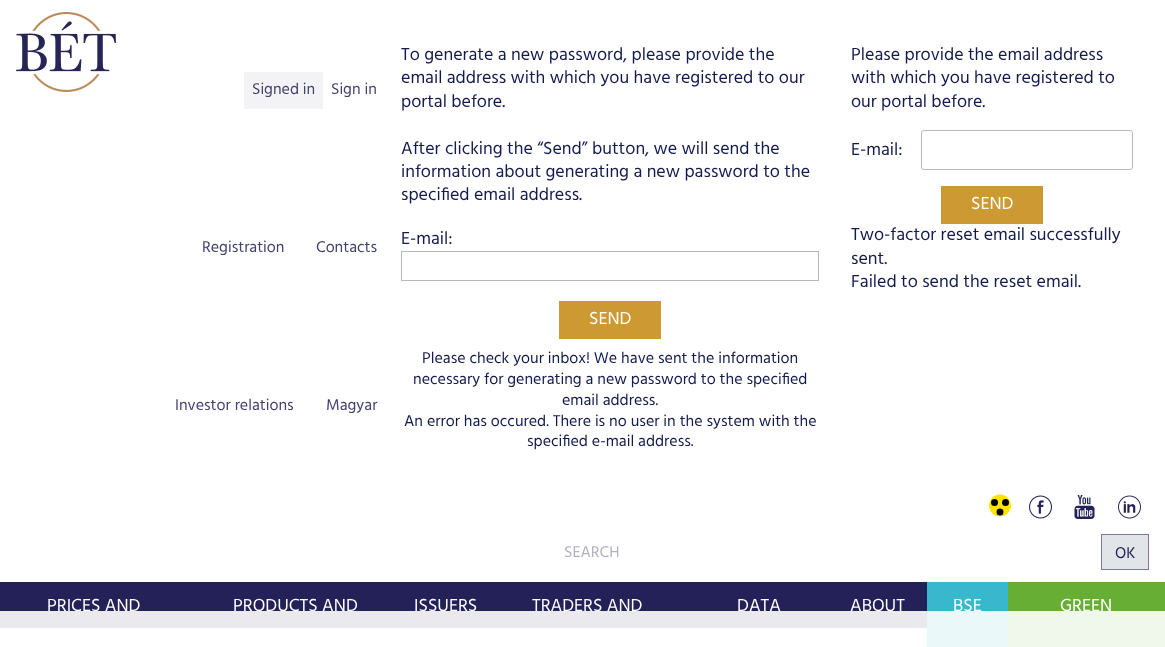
<svg xmlns="http://www.w3.org/2000/svg" xmlns:xlink="http://www.w3.org/1999/xlink" width="1165" height="647" viewBox="0 0 1165 647">
<style>
.cls-1{font:16px Hind;fill:#42416f}
.cls-2{font:18px Hind;fill:#131b4d}
.cls-3{font:18px Hind;fill:#ffffff}
.cls-4{font:16px Hind;fill:#131b4d}
.cls-5{font:16px Hind;fill:#b0b0c0}
.cls-6{font:16px Hind;fill:#232157}
</style>
<rect width="100%" height="100%" fill="#ffffff"/>
<image xlink:href="image0.png" x="16" y="12" width="100" height="80"/>
<rect fill="#f3f3f6" x="244" y="72" width="79" height="37"/>
<rect fill="none" stroke="#b4b9bd" x="401.5" y="251.5" width="417" height="29"/>
<rect fill="#cc9933" x="559" y="301" width="102" height="38"/>
<rect fill="none" stroke="#b4b9bd" x="921.5" y="130.5" width="211" height="39" rx="2.5"/>
<rect fill="#cc9933" x="941" y="186" width="102" height="38"/>
<circle fill="#ffe500" cx="1000" cy="505.5" r="11"/>
<circle fill="#000000" cx="1000" cy="512" r="3.5"/>
<circle fill="#000000" cx="1005.5" cy="502.5" r="3.5"/>
<circle fill="#000000" cx="994.5" cy="502.5" r="3.5"/>
<image xlink:href="image1.png" x="1029" y="495" width="23" height="24"/>
<image xlink:href="image2.png" x="1074" y="495" width="21" height="24"/>
<image xlink:href="image3.png" x="1118" y="495" width="23" height="24"/>
<rect fill="#e2e5e8" stroke="#7b7a9a" x="1101.5" y="534.5" width="47" height="35"/>
<rect fill="#232157" x="0" y="582" width="927" height="46"/>
<rect fill="#39b7cd" x="927" y="582" width="81" height="65"/>
<rect fill="#67ae34" x="1008" y="582" width="157" height="65"/>
<text class="cls-1" x="252" y="94">Signed in</text>
<text class="cls-1" x="331" y="94">Sign in</text>
<text class="cls-1" x="202" y="252">Registration</text>
<text class="cls-1" x="316" y="252">Contacts</text>
<text class="cls-1" x="175" y="410">Investor relations</text>
<text class="cls-1" x="326" y="410">Magyar</text>
<text class="cls-2"><tspan x="401" y="60">To generate a new password, please provide the</tspan><tspan x="401" y="83">email address with which you have registered to our</tspan><tspan x="401" y="107">portal before.</tspan></text>
<text class="cls-2"><tspan x="401" y="154">After clicking the “Send” button, we will send the</tspan><tspan x="401" y="177">information about generating a new password to the</tspan><tspan x="401" y="200">specified email address.</tspan></text>
<text class="cls-2" x="401" y="244">E-mail:</text>
<text class="cls-3" x="589" y="324">SEND</text>
<text class="cls-4" x="422" y="363">Please check your inbox! We have sent the information</text>
<text class="cls-4" x="413" y="384">necessary for generating a new password to the specified</text>
<text class="cls-4" x="562" y="405">email address.</text>
<text class="cls-4" x="404" y="426">An error has occured. There is no user in the system with the</text>
<text class="cls-4" x="527" y="446">specified e-mail address.</text>
<text class="cls-2"><tspan x="851" y="60">Please provide the email address</tspan><tspan x="851" y="83">with which you have registered to</tspan><tspan x="851" y="107">our portal before.</tspan></text>
<text class="cls-2" x="851" y="155">E-mail:</text>
<text class="cls-3" x="971" y="209">SEND</text>
<text class="cls-2"><tspan x="851" y="240">Two-factor reset email successfully</tspan><tspan x="851" y="264">sent.</tspan><tspan x="851" y="287">Failed to send the reset email.</tspan></text>
<text class="cls-5" x="564" y="557">SEARCH</text>
<text class="cls-6" x="1115" y="558">OK</text>
<text class="cls-3" x="47" y="611">PRICES AND</text>
<text class="cls-3" x="233" y="611">PRODUCTS AND</text>
<text class="cls-3" x="414" y="611">ISSUERS</text>
<text class="cls-3" x="532" y="611">TRADERS AND</text>
<text class="cls-3" x="737" y="611">DATA</text>
<text class="cls-3" x="850" y="611">ABOUT</text>
<text class="cls-3" x="953" y="611">BSE</text>
<text class="cls-3" x="1060" y="611">GREEN</text>
<rect fill="#ffffff" fill-opacity="0.9" x="0" y="611" width="1165" height="36"/>
</svg>
